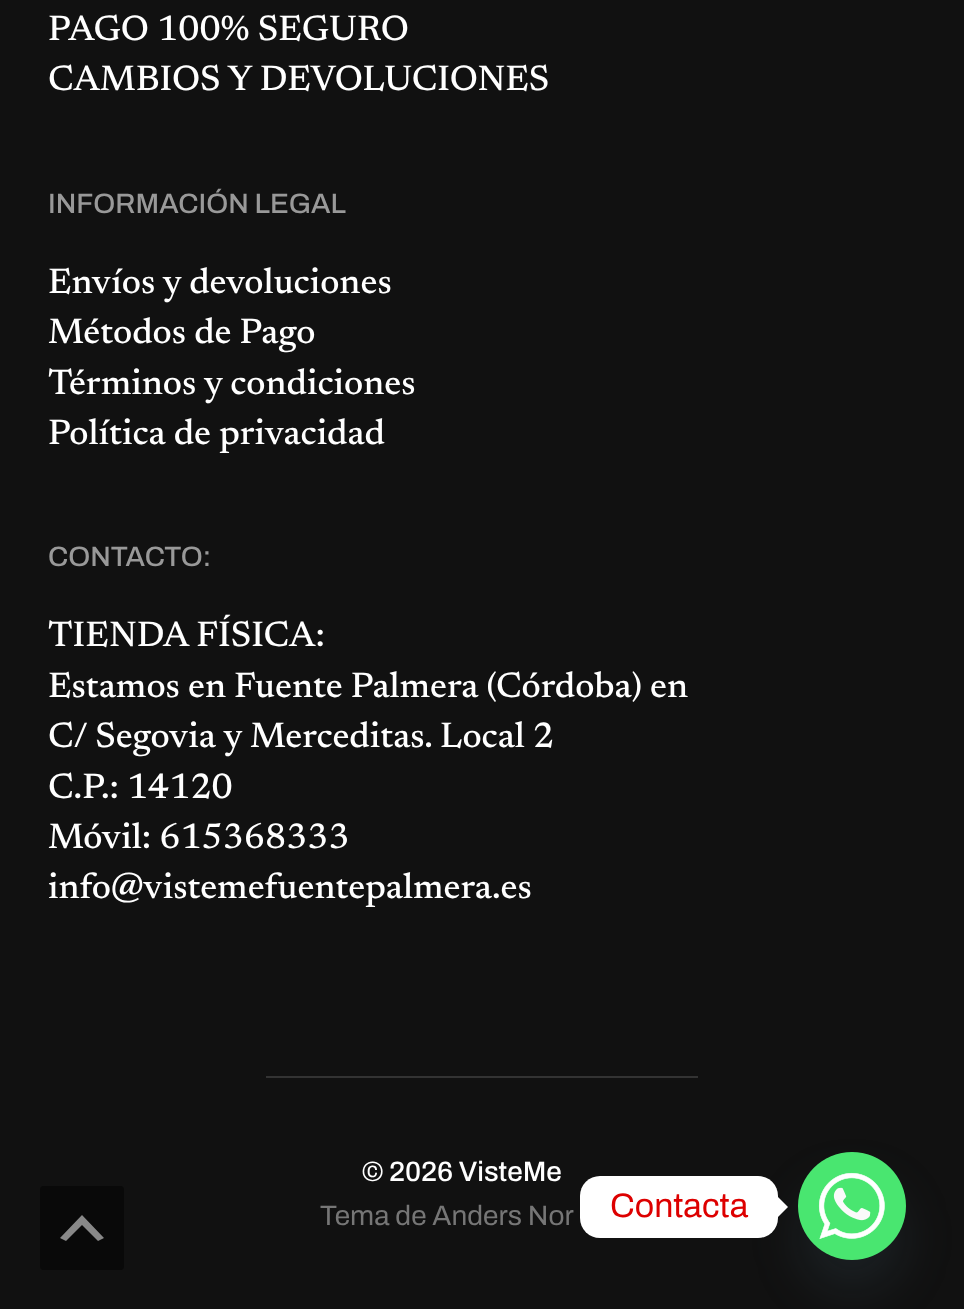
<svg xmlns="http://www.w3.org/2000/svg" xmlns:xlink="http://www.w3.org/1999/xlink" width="964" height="1309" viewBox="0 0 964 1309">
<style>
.cls-1{font:500 36px Newsreader;fill:#ffffff}
.cls-2{font:600 28px Archivo;fill:#999999}
.cls-3{font:600 28px Archivo;fill:#ffffff}
.cls-4{font:600 28px 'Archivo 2';fill:#767676}
.cls-5{font:600 34px 'Archivo 2';fill:#dd0000}
</style>
<rect width="100%" height="100%" fill="#111111"/>
<rect fill="#333333" x="266" y="1076" width="432" height="2"/>
<rect fill="#090909" x="40" y="1186" width="84" height="84" rx="4"/>
<path fill="#888888" d="M98 1241L82 1225L66 1241L60 1238L82 1215L104 1238Z"/>
<rect fill="#49687e" fill-opacity="0.16" filter="blur(24px)" x="798" y="1184" width="108" height="108" rx="54"/>
<rect fill="#ffffff" x="580" y="1176" width="198" height="62" rx="20"/>
<path fill="#ffffff" d="M778 1217V1197L788 1207Z"/>
<image xlink:href="image0.png" x="798" y="1152" width="108" height="108"/>
<text class="cls-1"><tspan x="48" y="40">PAGO 100% SEGURO</tspan><tspan x="48" y="90">CAMBIOS Y DEVOLUCIONES</tspan></text>
<text class="cls-2" x="48" y="213">INFORMACIÓN LEGAL</text>
<text class="cls-1"><tspan x="48" y="293">Envíos y devoluciones</tspan><tspan x="48" y="343">Métodos de Pago</tspan><tspan x="48" y="394">Términos y condiciones</tspan><tspan x="48" y="444">Política de privacidad</tspan></text>
<text class="cls-2" x="48" y="566">CONTACTO:</text>
<text class="cls-1"><tspan x="48" y="646">TIENDA FÍSICA:</tspan><tspan x="48" y="697">Estamos en Fuente Palmera (Córdoba) en</tspan><tspan x="48" y="747">C/ Segovia y Merceditas. Local 2</tspan><tspan x="48" y="798">C.P.: 14120</tspan><tspan x="48" y="848">Móvil: 615368333</tspan><tspan x="48" y="898">info@vistemefuentepalmera.es</tspan></text>
<text class="cls-3" x="362" y="1181">© 2026 VisteMe</text>
<text class="cls-4" x="320" y="1225">Tema de Anders Nor</text>
<text class="cls-5" x="610" y="1217">Contacta</text>
</svg>
